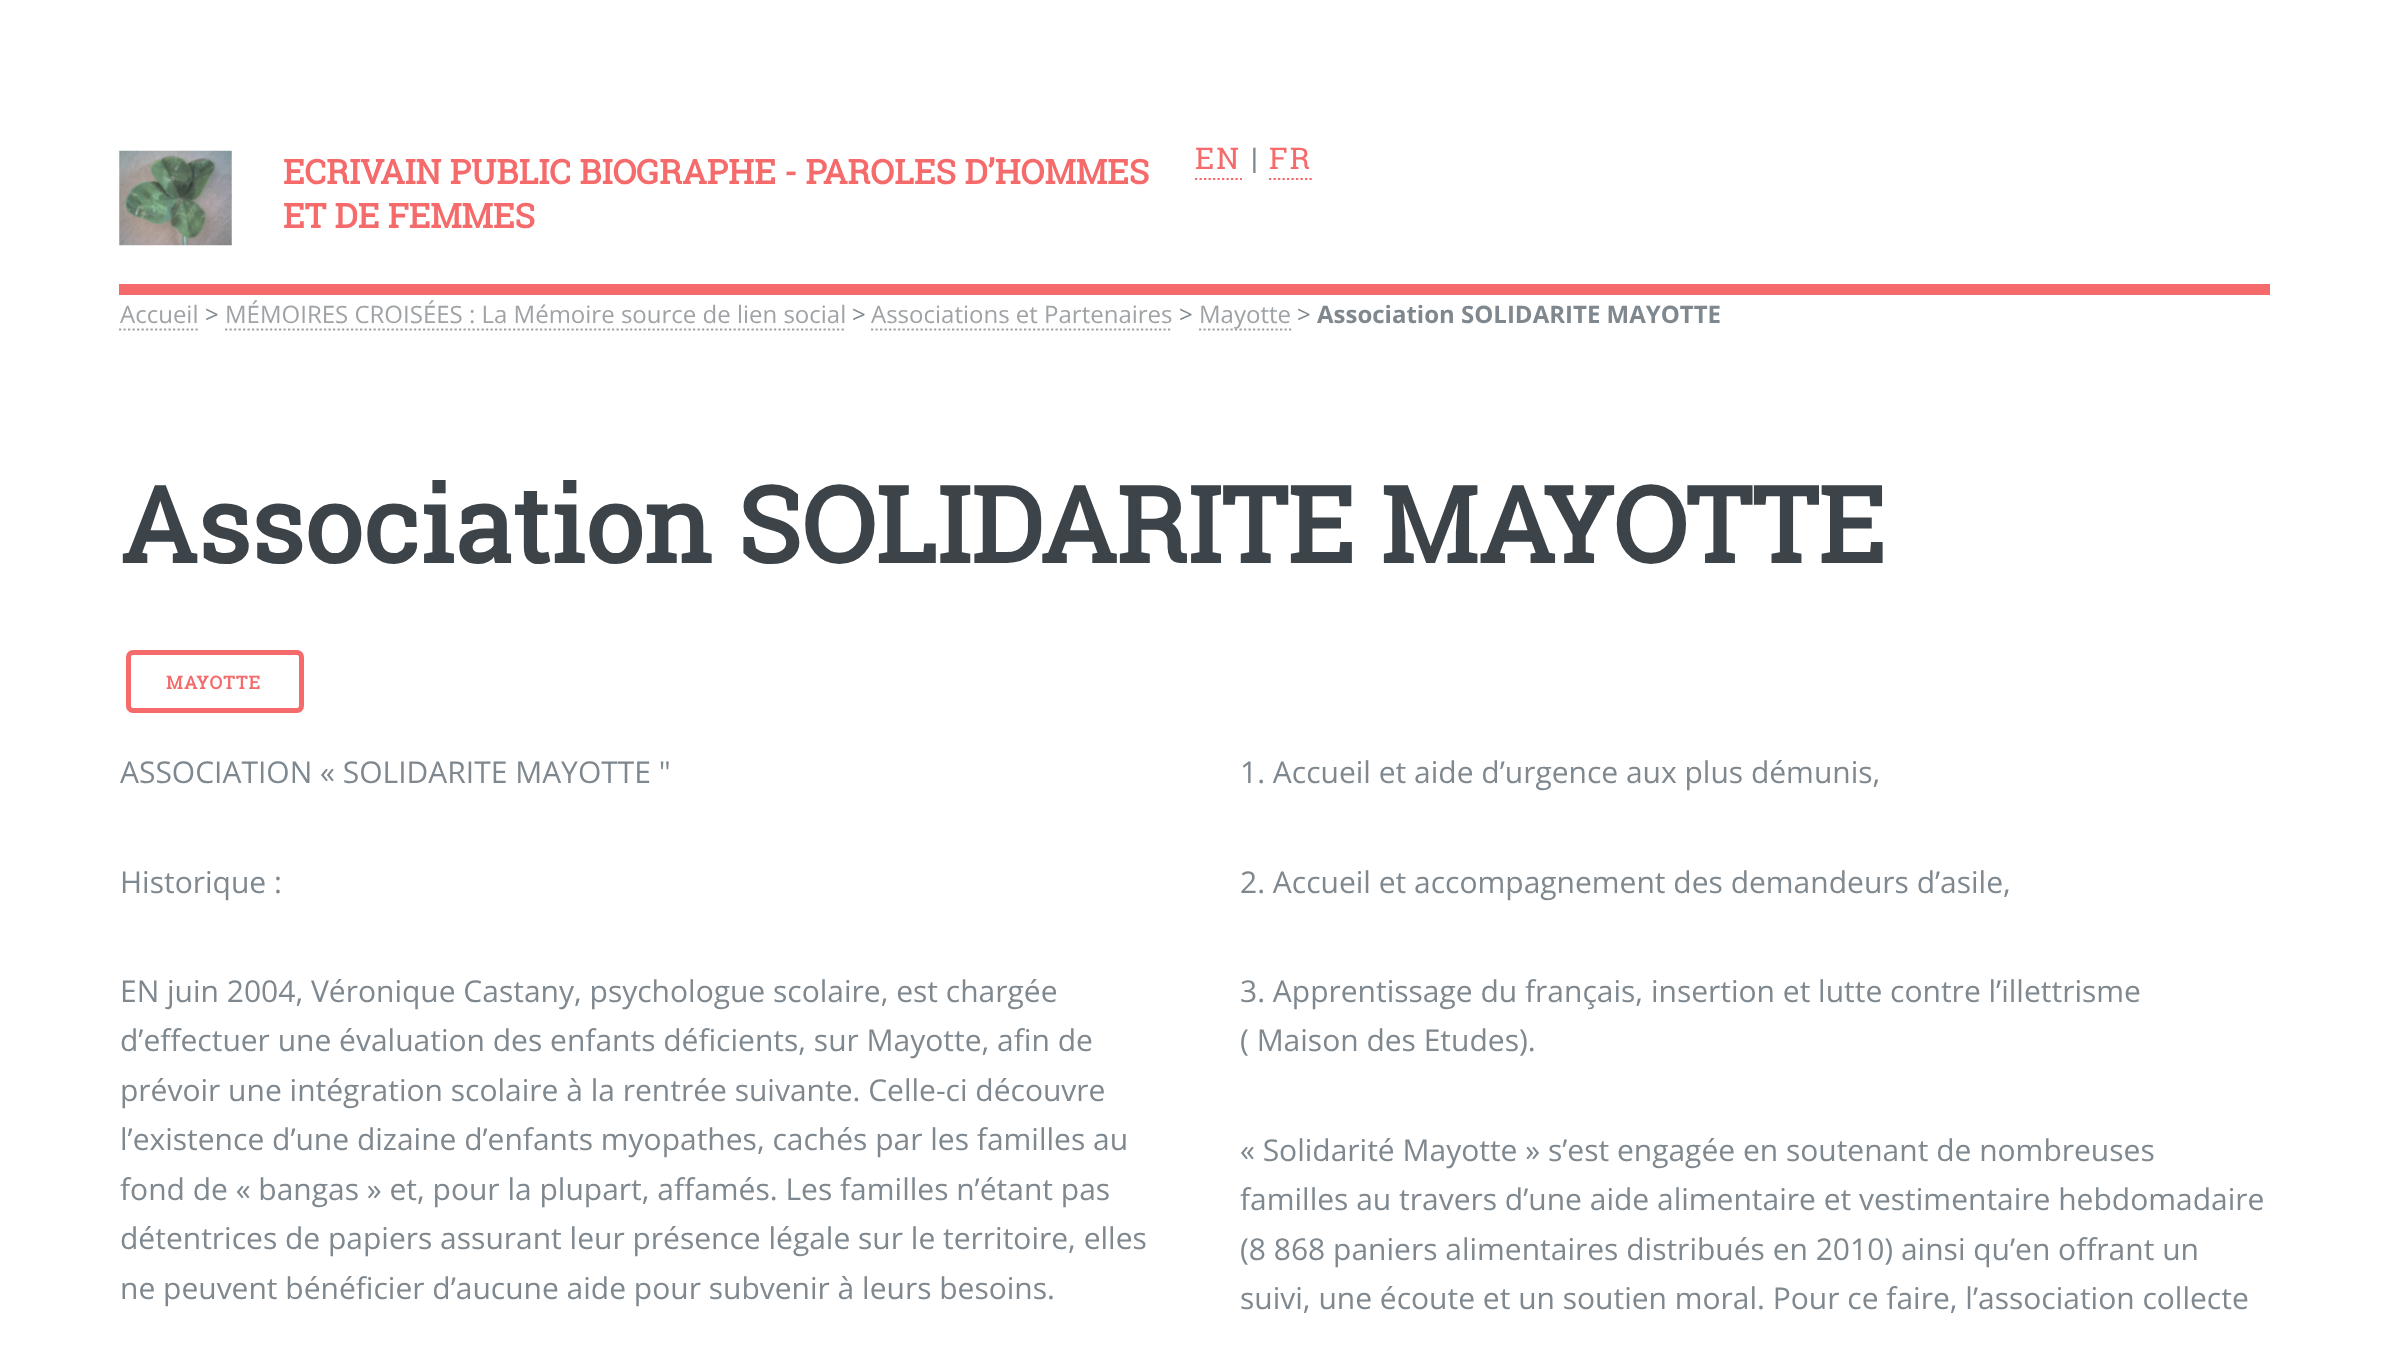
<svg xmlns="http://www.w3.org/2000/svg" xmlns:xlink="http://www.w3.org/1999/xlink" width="2388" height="1346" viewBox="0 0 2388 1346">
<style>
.cls-1{font:bold 33.75px Roboto Slab;fill:#f56a6a}
.cls-2{font:30px Roboto Slab;letter-spacing:2px;fill:#f56a6a}
.cls-3{font:30px Roboto Slab;letter-spacing:2px;fill:#7f888f}
.cls-4{font:24px Open Sans;fill:#9fa3a6}
.cls-5{font:24px Open Sans;fill:#7f888f}
.cls-6{font:bold 24px Open Sans;fill:#7f888f}
.cls-7{font:bold 105px Roboto Slab;fill:#3d4449}
.cls-8{font:bold 18px Roboto Slab;letter-spacing:1.25px;fill:#f56a6a}
.cls-9{font:30px Open Sans;fill:#7f888f}
</style>
<rect width="100%" height="100%" fill="#ffffff"/>
<rect fill="#f56a6a" x="119" y="284" width="2151" height="11"/>
<image xlink:href="image0.png" x="119" y="150" width="113" height="96"/>
<path fill="none" stroke="#f56a6a" stroke-width="2.2" stroke-dasharray="2.25 2.25" d="M1195 179H1242"/>
<path fill="none" stroke="#f56a6a" stroke-width="2.2" stroke-dasharray="2.25 2.25" d="M1269 179H1314"/>
<path fill="none" stroke="#9fa3a6" stroke-width="2.2" stroke-dasharray="2.25 2.25" d="M119 329.5H198"/>
<path fill="none" stroke="#9fa3a6" stroke-width="2.2" stroke-dasharray="2.25 2.25" d="M225 329.5H846"/>
<path fill="none" stroke="#9fa3a6" stroke-width="2.2" stroke-dasharray="2.25 2.25" d="M871 329.5H1172"/>
<path fill="none" stroke="#9fa3a6" stroke-width="2.2" stroke-dasharray="2.25 2.25" d="M1199 329.5H1291.5"/>
<rect fill="none" stroke="#f56a6a" stroke-width="5" x="128.5" y="652.5" width="173" height="58" rx="4.5"/>
<text class="cls-1"><tspan x="283" y="184">ECRIVAIN PUBLIC BIOGRAPHE - PAROLES D’HOMMES</tspan><tspan x="283" y="228">ET DE FEMMES</tspan></text>
<text class="cls-2" x="1195" y="169">EN</text>
<text class="cls-3" x="1251" y="169">|</text>
<text class="cls-2" x="1269" y="169">FR</text>
<text class="cls-4" x="120" y="323">Accueil</text>
<text class="cls-5" x="205" y="323">&gt;</text>
<text class="cls-4" x="225" y="323">MÉMOIRES CROISÉES : La Mémoire source de lien social</text>
<text class="cls-5" x="852" y="323">&gt;</text>
<text class="cls-4" x="871" y="323">Associations et Partenaires</text>
<text class="cls-5" x="1179" y="323">&gt;</text>
<text class="cls-4" x="1199" y="323">Mayotte</text>
<text class="cls-5" x="1297" y="323">&gt;</text>
<text class="cls-6" x="1317" y="323">Association SOLIDARITE MAYOTTE</text>
<text class="cls-7" x="120" y="563">Association SOLIDARITE MAYOTTE</text>
<text class="cls-8" x="166" y="689">MAYOTTE</text>
<text class="cls-9" x="120" y="783">ASSOCIATION « SOLIDARITE MAYOTTE "</text>
<text class="cls-9" x="1240" y="783">1. Accueil et aide d’urgence aux plus démunis,</text>
<text class="cls-9" x="120" y="893">Historique :</text>
<text class="cls-9" x="1240" y="893">2. Accueil et accompagnement des demandeurs d’asile,</text>
<text class="cls-9"><tspan x="120" y="1002">EN juin 2004, Véronique Castany, psychologue scolaire, est chargée</tspan><tspan x="120" y="1051">d’effectuer une évaluation des enfants déficients, sur Mayotte, afin de</tspan><tspan x="120" y="1101">prévoir une intégration scolaire à la rentrée suivante. Celle-ci découvre</tspan><tspan x="120" y="1150">l’existence d’une dizaine d’enfants myopathes, cachés par les familles au</tspan><tspan x="120" y="1200">fond de « bangas » et, pour la plupart, affamés. Les familles n’étant pas</tspan><tspan x="120" y="1249">détentrices de papiers assurant leur présence légale sur le territoire, elles</tspan><tspan x="120" y="1299">ne peuvent bénéficier d’aucune aide pour subvenir à leurs besoins.</tspan></text>
<text class="cls-9"><tspan x="1240" y="1002">3. Apprentissage du français, insertion et lutte contre l’illettrisme</tspan><tspan x="1240" y="1051">( Maison des Etudes).</tspan></text>
<text class="cls-9"><tspan x="1240" y="1161">« Solidarité Mayotte » s’est engagée en soutenant de nombreuses</tspan><tspan x="1240" y="1210">familles au travers d’une aide alimentaire et vestimentaire hebdomadaire</tspan><tspan x="1240" y="1260">(8 868 paniers alimentaires distribués en 2010) ainsi qu’en offrant un</tspan><tspan x="1240" y="1309">suivi, une écoute et un soutien moral. Pour ce faire, l’association collecte</tspan></text>
</svg>
